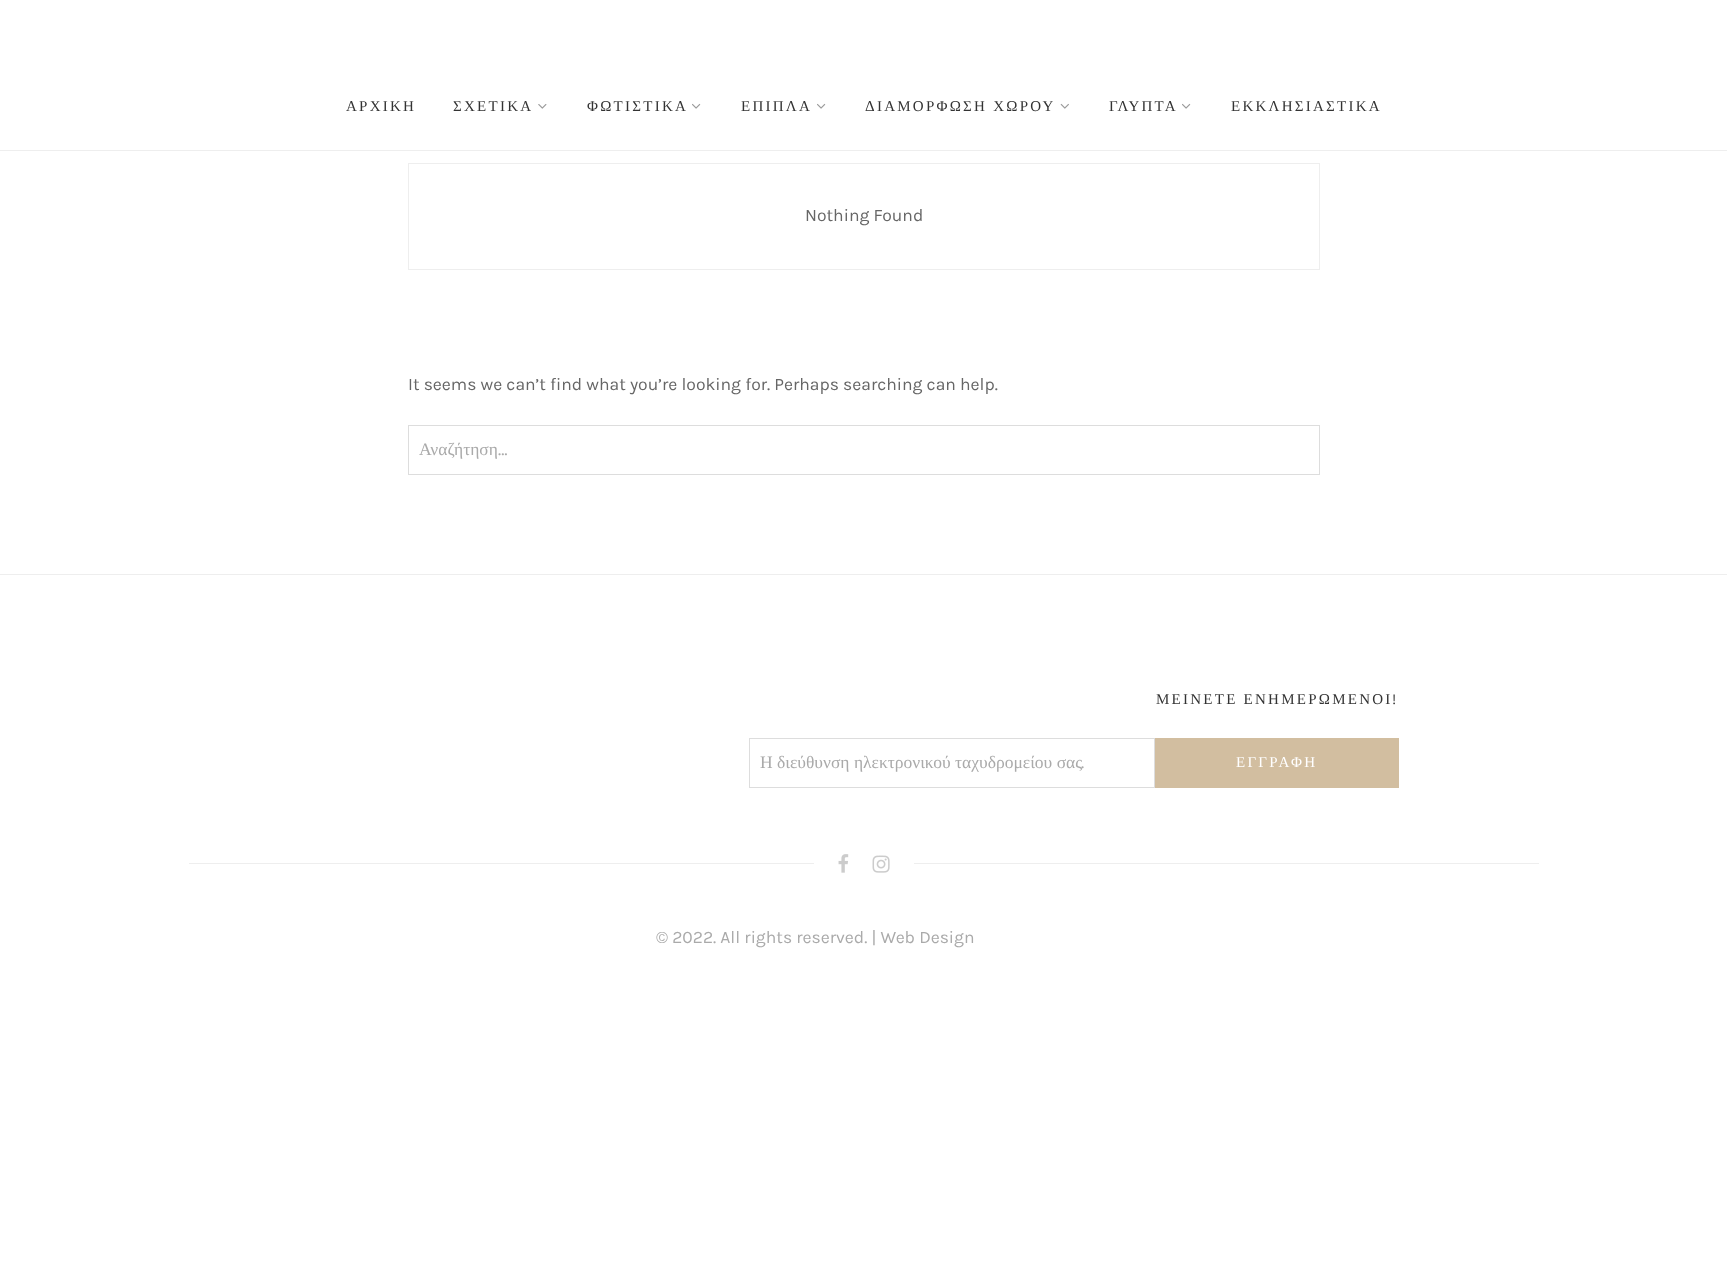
<svg xmlns="http://www.w3.org/2000/svg" xmlns:xlink="http://www.w3.org/1999/xlink" width="1727" height="1279" viewBox="0 0 1727 1279">
<style>
.cls-1{font:15px Liberation Serif;letter-spacing:2.25px;fill:#333333}
.cls-2{font:17.5px Karla;fill:#666666}
.cls-3{font:17.5px Liberation Serif;fill:#aaaaaa}
.cls-4{font:17.5px Karla;fill:#aaaaaa}
.cls-5{font:15px Karla;letter-spacing:2.25px;fill:#333333}
.cls-6{font:15px Liberation Serif;letter-spacing:2.25px;fill:#ffffff}
</style>
<rect width="100%" height="100%" fill="#ffffff"/>
<image xlink:href="image0.png" x="538" y="104" width="9" height="5"/>
<image xlink:href="image1.png" x="692" y="103" width="9" height="6"/>
<image xlink:href="image1.png" x="817" y="103" width="9" height="6"/>
<image xlink:href="image2.png" x="1060" y="103" width="9" height="6"/>
<image xlink:href="image1.png" x="1182" y="103" width="9" height="6"/>
<rect fill="#eeeeee" x="0" y="150" width="1727" height="1"/>
<rect fill="none" stroke="#eeeeee" x="408.5" y="163.5" width="911" height="106"/>
<rect fill="none" stroke="#dddddd" x="408.5" y="425.5" width="911" height="49"/>
<rect fill="#eeeeee" x="0" y="574" width="1727" height="1"/>
<rect fill="none" stroke="#dddddd" x="749.5" y="738.5" width="405" height="49"/>
<rect fill="#d2bea0" x="1155" y="738" width="244" height="50"/>
<rect fill="#eeeeee" x="189" y="863" width="1350" height="1"/>
<rect fill="#ffffff" x="814" y="863" width="100" height="1"/>
<image xlink:href="image3.png" x="838" y="854" width="11" height="19"/>
<image xlink:href="image4.png" x="872" y="855" width="18" height="18"/>
<text class="cls-1" x="346" y="111">ΑΡΧΙΚΗ</text>
<text class="cls-1" x="453" y="111">ΣΧΕΤΙΚΑ</text>
<text class="cls-1" x="587" y="111">ΦΩΤΙΣΤΙΚΑ</text>
<text class="cls-1" x="741" y="111">ΕΠΙΠΛΑ</text>
<text class="cls-1" x="865" y="111">ΔΙΑΜΟΡΦΩΣΗ ΧΩΡΟΥ</text>
<text class="cls-1" x="1109" y="111">ΓΛΥΠΤΑ</text>
<text class="cls-1" x="1231" y="111">ΕΚΚΛΗΣΙΑΣΤΙΚΑ</text>
<text class="cls-2" x="805" y="221">Nothing Found</text>
<text class="cls-2" x="408" y="390">It seems we can’t find what you’re looking for. Perhaps searching can help.</text>
<text class="cls-3" x="419" y="455">Αναζήτηση</text>
<text class="cls-4" x="498" y="455">…</text>
<text class="cls-1" x="1156" y="704">ΜΕΙΝΕΤΕ ΕΝΗΜΕΡΩΜΕΝΟΙ</text>
<text class="cls-5" x="1392" y="704">!</text>
<text class="cls-3" x="760" y="768">Η διεύθυνση ηλεκτρονικού ταχυδρομείου σας</text>
<text class="cls-4" x="1081" y="768">.</text>
<text class="cls-6" x="1236" y="767">ΕΓΓΡΑΦΗ</text>
<text class="cls-4" x="656" y="943">© 2022. All rights reserved. | Web Design</text>
</svg>
